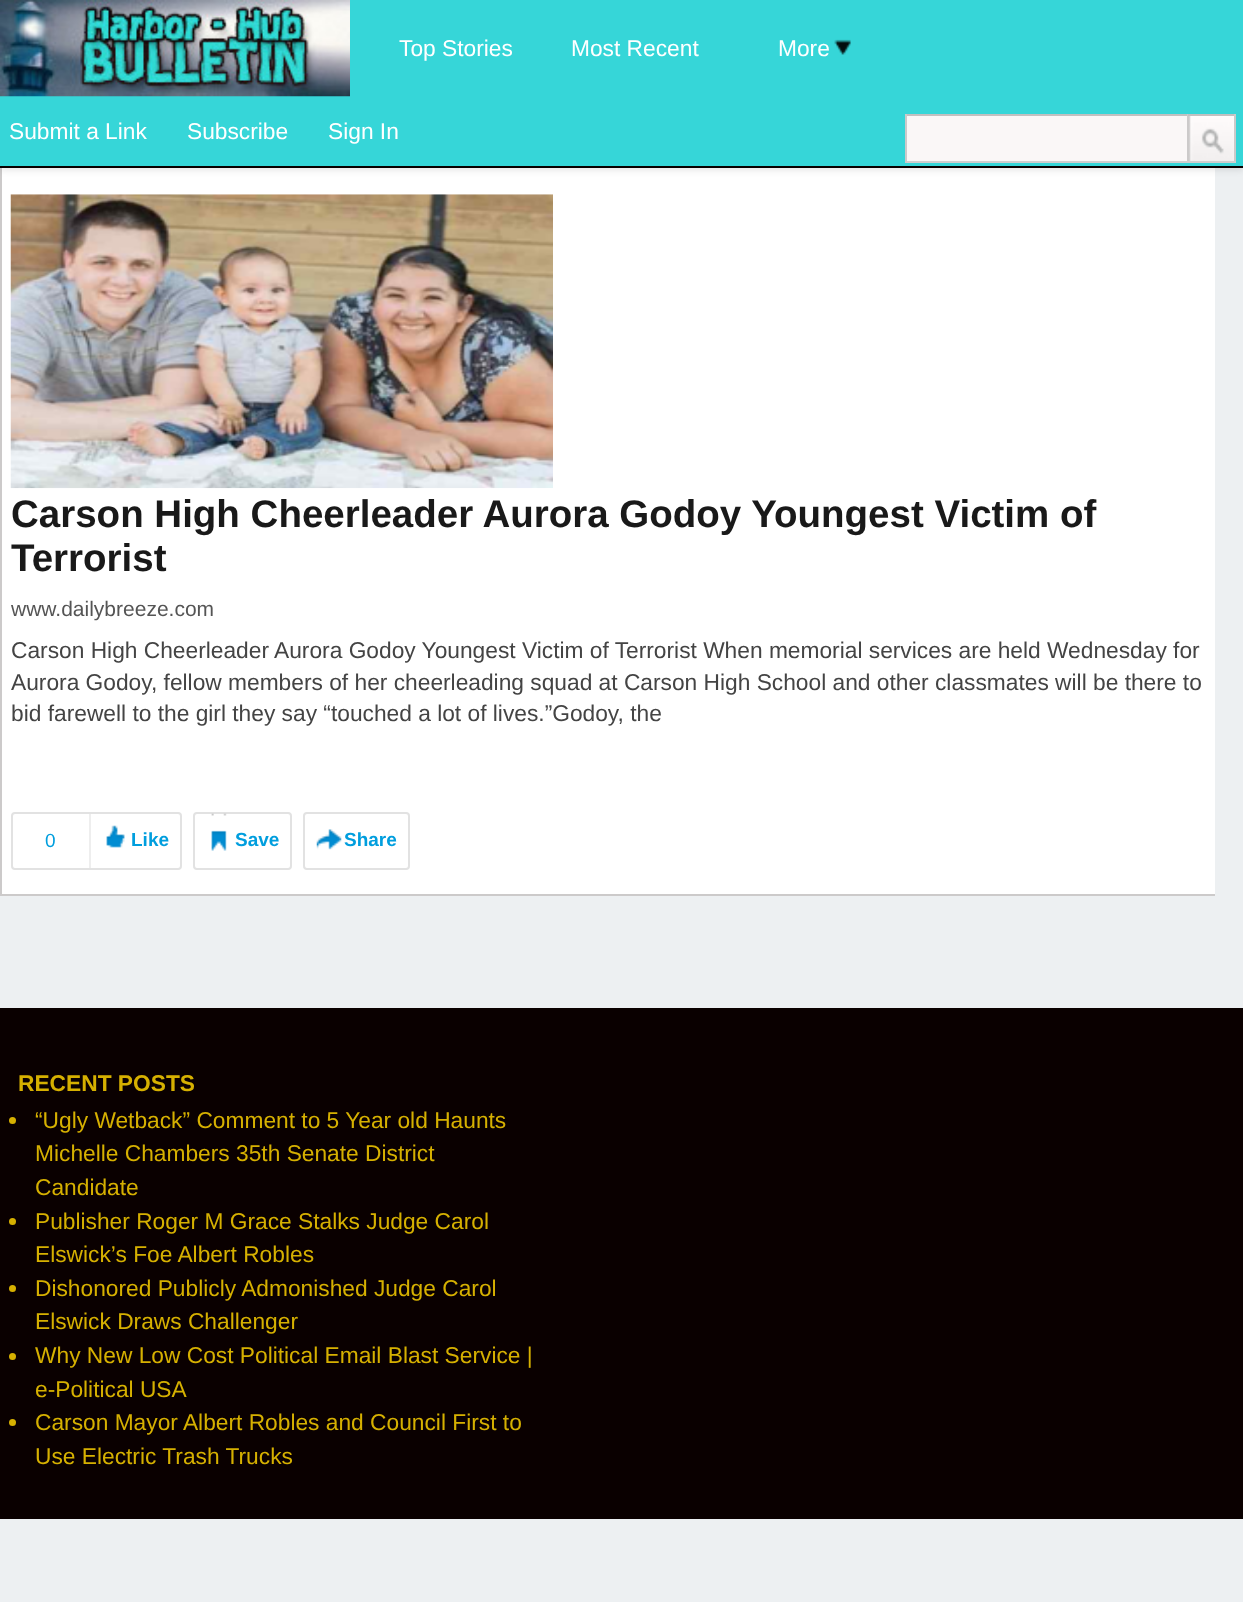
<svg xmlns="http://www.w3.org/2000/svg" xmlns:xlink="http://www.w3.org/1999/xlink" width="1243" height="1602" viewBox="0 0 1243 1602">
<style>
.cls-1{font:22.75px Liberation Sans;fill:#ffffff}
.cls-2{font:bold 38.5px Liberation Sans;fill:#191919}
.cls-3{font:21px Liberation Sans;fill:#555555}
.cls-4{font:22.75px Liberation Sans;fill:#444444}
.cls-5{font:19px Liberation Sans;fill:#009ede}
.cls-6{font:bold 19px Liberation Sans;fill:#009ede}
.cls-7{font:bold 22.75px Liberation Sans;fill:#d6b000}
.cls-8{font:22.75px Liberation Sans;fill:#d6b000}
</style>
<rect width="100%" height="100%" fill="#edf0f2"/>
<rect fill="#ffffff" x="2" y="168" width="1213" height="726"/>
<rect fill="#cccaca" x="0" y="894" width="1215" height="2"/>
<rect fill="#cccaca" x="0" y="163" width="2" height="733"/>
<rect fill="#000000" fill-opacity="0.1" filter="blur(3.5px)" x="0" y="2" width="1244" height="168"/>
<rect fill="#36d6d8" x="0" y="0" width="1243" height="166"/>
<rect fill="#080000" x="0" y="166" width="1243" height="2"/>
<image xlink:href="image0.png" x="0" y="0" width="350" height="97"/>
<image xlink:href="image1.png" x="834" y="39" width="17" height="16"/>
<rect fill="#faf7f7" x="907" y="116" width="280" height="45"/>
<rect fill="#c2c0c0" x="905" y="114" width="283" height="2"/>
<rect fill="#cccaca" x="1187" y="114" width="2" height="49"/>
<rect fill="#d1cfcf" x="905" y="161" width="283" height="2"/>
<rect fill="#cccaca" x="905" y="114" width="2" height="49"/>
<image xlink:href="image2.png" x="1189" y="116" width="45" height="45"/>
<rect fill="#c2c0c0" x="1188" y="114" width="48" height="2"/>
<rect fill="#cccaca" x="1234" y="114" width="2" height="49"/>
<rect fill="#d1cfcf" x="1188" y="161" width="48" height="2"/>
<image xlink:href="image3.png" x="10" y="194" width="543" height="295"/>
<rect fill="none" stroke="#e2e2e2" stroke-width="2" x="12" y="813" width="169" height="56" rx="3"/>
<rect fill="#eeeeee" x="89" y="814" width="2" height="54"/>
<image xlink:href="image4.png" x="106" y="825" width="19" height="23"/>
<rect fill="none" stroke="#e2e2e2" stroke-width="2" x="194" y="813" width="97" height="56" rx="3"/>
<image xlink:href="image5.png" x="211" y="813" width="16" height="38"/>
<rect fill="none" stroke="#e2e2e2" stroke-width="2" x="304" y="813" width="105" height="56" rx="3"/>
<image xlink:href="image6.png" x="316" y="829" width="26" height="21"/>
<rect fill="#0a0000" x="0" y="1008" width="1243" height="511"/>
<circle fill="#d6b000" cx="12.5" cy="1120.5" r="3.5"/>
<circle fill="#d6b000" cx="12.5" cy="1221.5" r="3.5"/>
<circle fill="#d6b000" cx="12.5" cy="1288.5" r="3.5"/>
<circle fill="#d6b000" cx="12.5" cy="1356.5" r="3.5"/>
<circle fill="#d6b000" cx="12.5" cy="1422.5" r="3.5"/>
<text class="cls-1" x="399" y="56">Top Stories</text>
<text class="cls-1" x="571" y="56">Most Recent</text>
<text class="cls-1" x="778" y="56">More</text>
<text class="cls-1" x="9" y="139">Submit a Link</text>
<text class="cls-1" x="187" y="139">Subscribe</text>
<text class="cls-1" x="328" y="139">Sign In</text>
<text class="cls-2"><tspan x="11" y="527">Carson High Cheerleader Aurora Godoy Youngest Victim of</tspan><tspan x="11" y="571">Terrorist</tspan></text>
<text class="cls-3" x="11" y="616">www.dailybreeze.com</text>
<text class="cls-4"><tspan x="11" y="658">Carson High Cheerleader Aurora Godoy Youngest Victim of Terrorist When memorial services are held Wednesday for</tspan><tspan x="11" y="690">Aurora Godoy, fellow members of her cheerleading squad at Carson High School and other classmates will be there to</tspan><tspan x="11" y="721">bid farewell to the girl they say “touched a lot of lives.”Godoy, the</tspan></text>
<text class="cls-5" x="45" y="847">0</text>
<text class="cls-6" x="131" y="846">Like</text>
<text class="cls-6" x="235" y="846">Save</text>
<text class="cls-6" x="344" y="846">Share</text>
<text class="cls-7" x="18" y="1091">RECENT POSTS</text>
<text class="cls-8"><tspan x="35" y="1128">“Ugly Wetback” Comment to 5 Year old Haunts</tspan><tspan x="35" y="1161">Michelle Chambers 35th Senate District</tspan><tspan x="35" y="1195">Candidate</tspan><tspan x="35" y="1229">Publisher Roger M Grace Stalks Judge Carol</tspan><tspan x="35" y="1262">Elswick’s Foe Albert Robles</tspan><tspan x="35" y="1296">Dishonored Publicly Admonished Judge Carol</tspan><tspan x="35" y="1329">Elswick Draws Challenger</tspan><tspan x="35" y="1363">Why New Low Cost Political Email Blast Service |</tspan><tspan x="35" y="1397">e-Political USA</tspan><tspan x="35" y="1430">Carson Mayor Albert Robles and Council First to</tspan><tspan x="35" y="1464">Use Electric Trash Trucks</tspan></text>
</svg>
